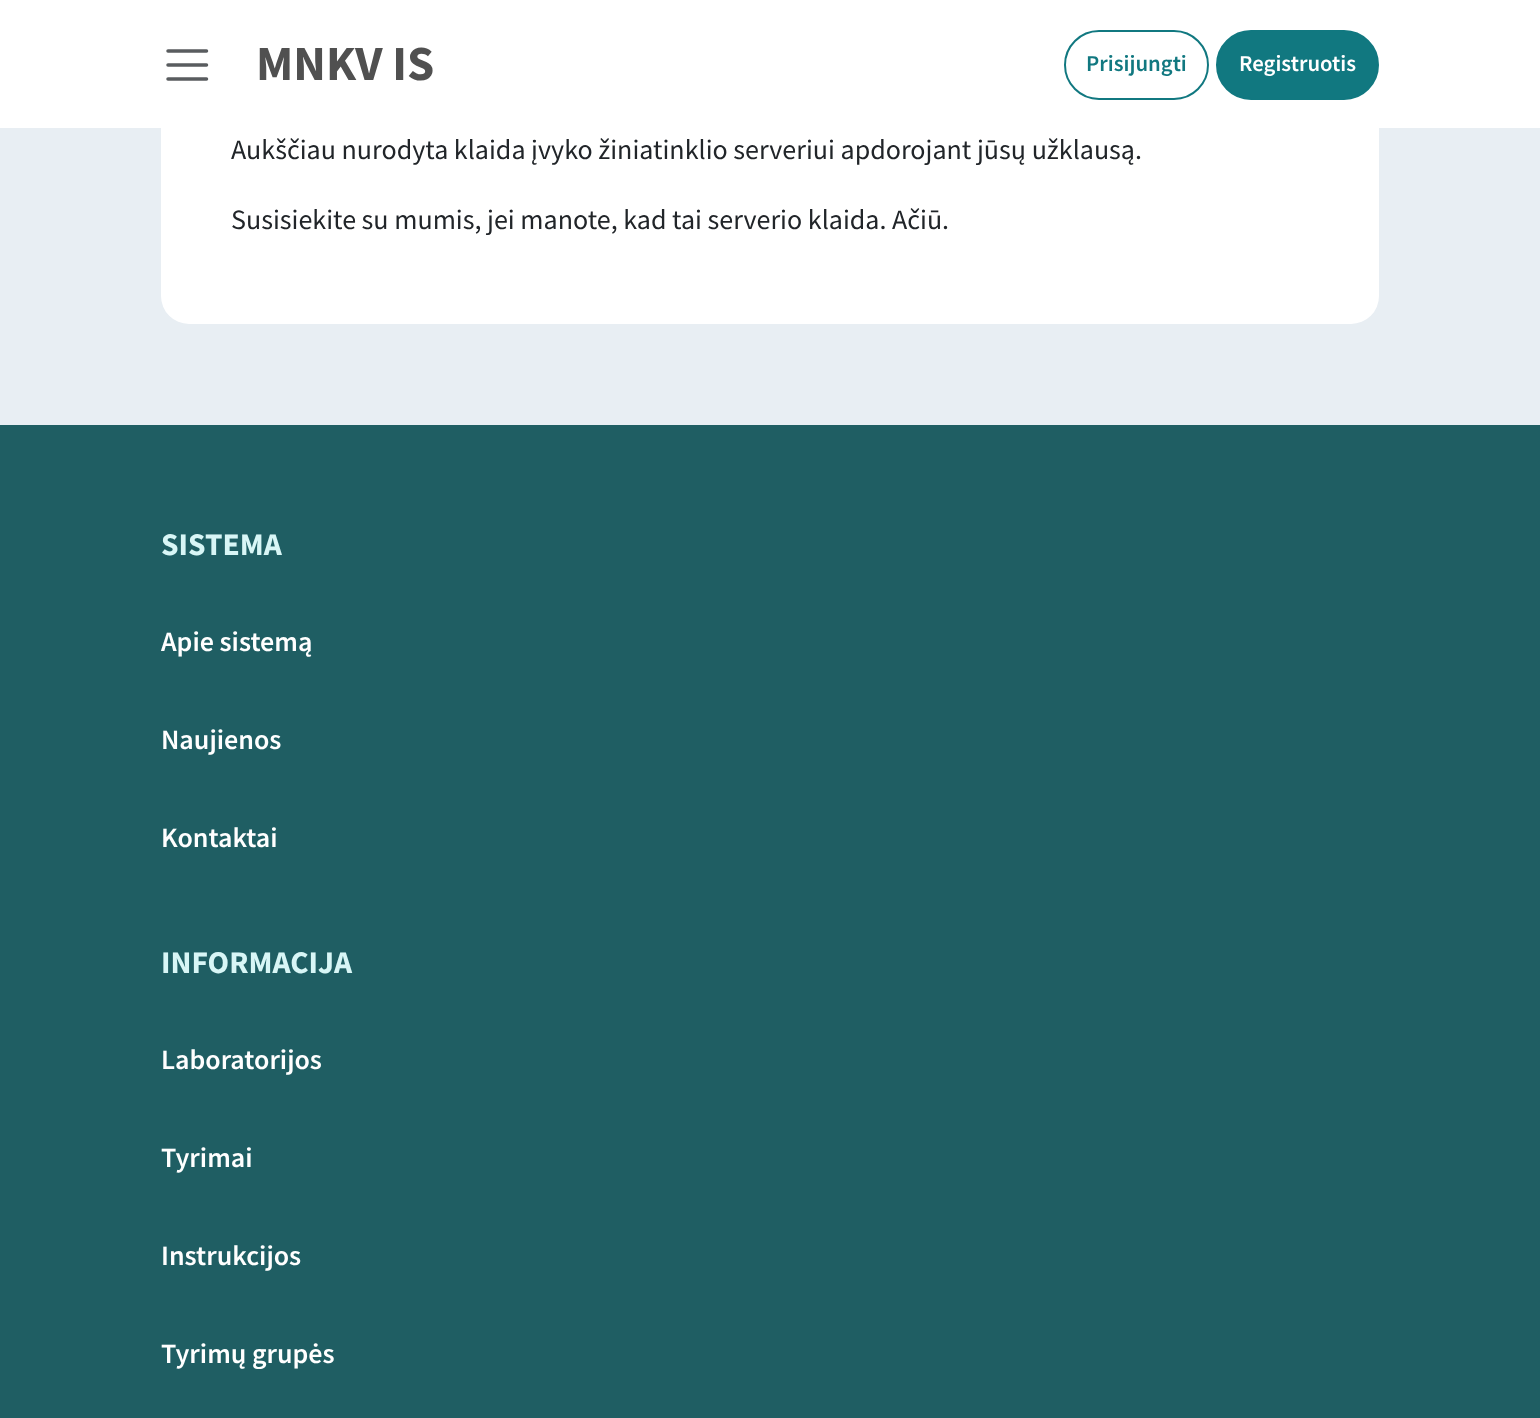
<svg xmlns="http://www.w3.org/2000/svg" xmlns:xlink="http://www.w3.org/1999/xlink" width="1540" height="1418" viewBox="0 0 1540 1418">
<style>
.cls-1{font:bold 49px Source Sans Pro;fill:#505050}
.cls-2{font:600 22.75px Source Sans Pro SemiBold;fill:#117880}
.cls-3{font:600 22.75px Source Sans Pro SemiBold;fill:#ffffff}
.cls-4{font:28px Source Sans Pro;fill:#212529}
.cls-5{font:bold 31.5px Source Sans Pro;fill:#d8f6f6}
.cls-6{font:600 28px Source Sans Pro SemiBold;fill:#ffffff}
</style>
<rect width="100%" height="100%" fill="#e8eef3"/>
<rect fill="#ffffff" x="161" y="-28" width="1218" height="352" rx="28"/>
<rect fill="#ffffff" x="0" y="0" width="1540" height="128"/>
<path fill="none" stroke="#595c5f" stroke-width="3.5" stroke-linecap="round" d="M168 51H206.5M168 65H206.5M168 79H206.5"/>
<rect fill="none" stroke="#117880" stroke-width="2" x="1065" y="31" width="143" height="68" rx="34"/>
<rect fill="#117880" stroke="#117880" stroke-width="2" x="1217" y="31" width="161" height="68" rx="34"/>
<rect fill="#1f5e63" x="0" y="425" width="1540" height="993"/>
<text class="cls-1" x="256" y="80">MNKV IS</text>
<text class="cls-2" x="1086" y="71">Prisijungti</text>
<text class="cls-3" x="1239" y="71">Registruotis</text>
<text class="cls-4" x="231" y="159">Aukščiau nurodyta klaida įvyko žiniatinklio serveriui apdorojant jūsų užklausą.</text>
<text class="cls-4" x="231" y="229">Susisiekite su mumis, jei manote, kad tai serverio klaida. Ačiū.</text>
<text class="cls-5" x="161" y="555">SISTEMA</text>
<text class="cls-6" x="161" y="651">Apie sistemą</text>
<text class="cls-6" x="161" y="749">Naujienos</text>
<text class="cls-6" x="161" y="847">Kontaktai</text>
<text class="cls-5" x="161" y="973">INFORMACIJA</text>
<text class="cls-6" x="161" y="1069">Laboratorijos</text>
<text class="cls-6" x="161" y="1167">Tyrimai</text>
<text class="cls-6" x="161" y="1265">Instrukcijos</text>
<text class="cls-6" x="161" y="1363">Tyrimų grupės</text>
</svg>
